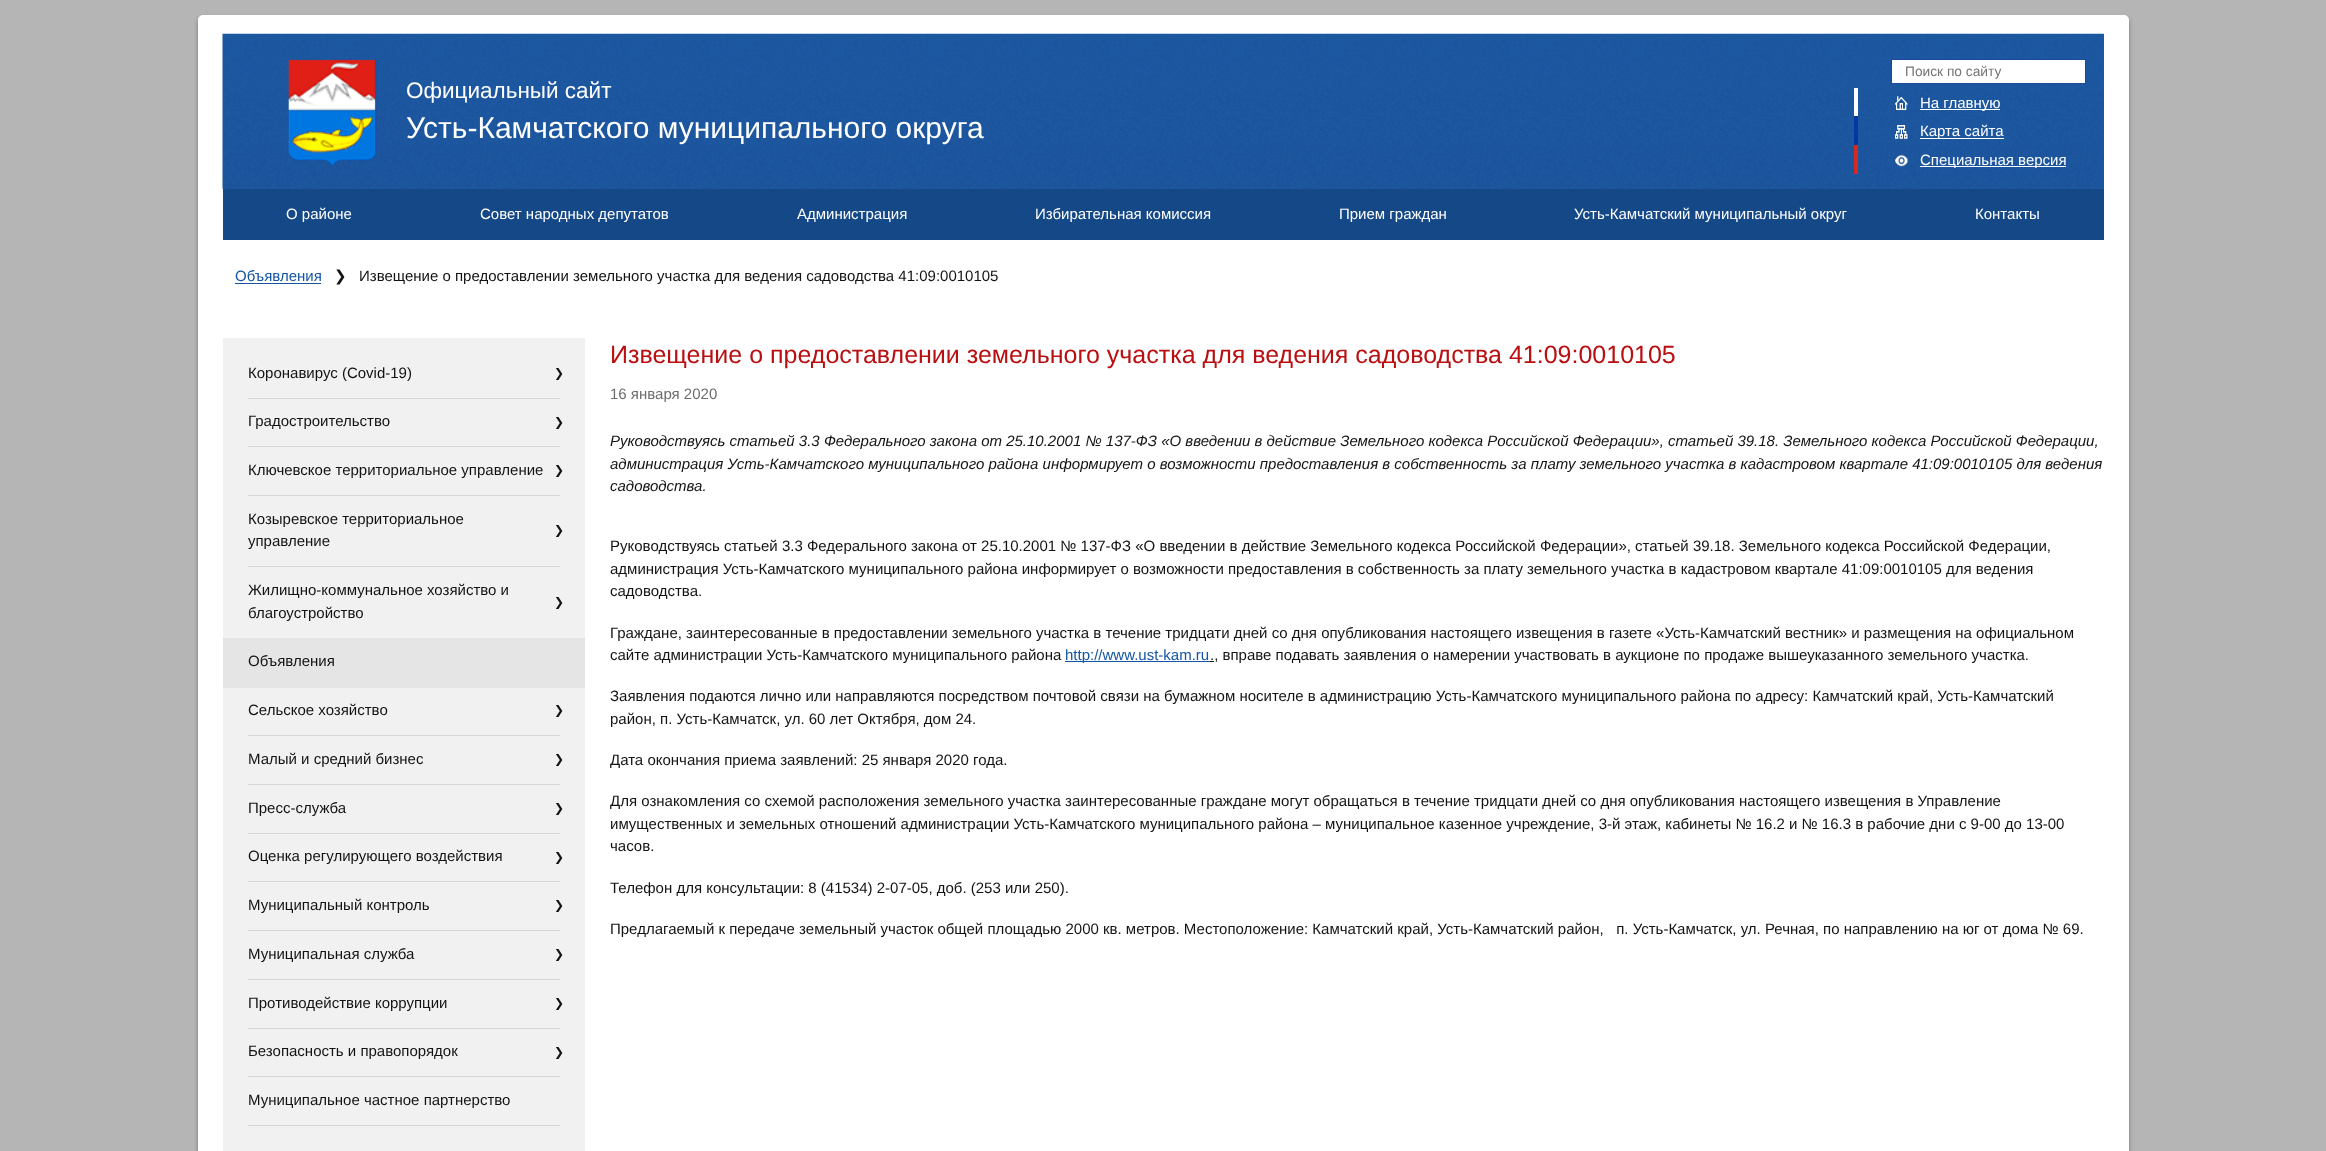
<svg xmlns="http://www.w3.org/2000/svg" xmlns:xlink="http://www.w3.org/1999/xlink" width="2326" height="1151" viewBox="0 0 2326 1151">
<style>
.cls-1{font:22.5px Liberation Sans;fill:#ffffff}
.cls-2{font:30px Liberation Sans;fill:#ffffff}
.cls-3{font:13.75px Liberation Sans;fill:#757575}
.cls-4{font:15px Liberation Sans;fill:#ffffff}
.cls-5{font:15px Liberation Sans;fill:#1455a5}
.cls-6{font:15px DejaVu Sans;fill:#131313}
.cls-7{font:15px Liberation Sans;fill:#131313}
.cls-8{font:12px DejaVu Sans;fill:#131313}
.cls-9{font:25px Liberation Sans;fill:#b90f10}
.cls-10{font:15px Liberation Sans;fill:#6c6c6c}
.cls-11{font:italic 15px Liberation Sans;fill:#131313}
</style>
<rect width="100%" height="100%" fill="#b5b5b5"/>
<rect fill="#000000" fill-opacity="0.35" filter="blur(2px)" x="198" y="18" width="1931" height="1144" rx="5"/>
<rect fill="#ffffff" x="198" y="15" width="1931" height="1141" rx="5"/>
<rect fill="#1d58a0" x="223" y="34" width="1881" height="155"/>
<image xlink:href="image0.png" x="222" y="33" width="1882" height="156"/>
<image xlink:href="image1.png" x="288" y="59" width="89" height="108"/>
<rect fill="#ffffff" x="1892" y="60" width="193" height="23"/>
<rect fill="#1b489d" x="1891" y="59" width="195" height="1"/>
<rect fill="#1b489d" x="1891" y="83" width="170" height="1"/>
<rect fill="#1b489d" x="1891" y="59" width="1" height="25"/>
<rect fill="#1b489d" x="2085" y="59" width="1" height="25"/>
<rect fill="#1b489d" x="2061" y="83" width="25" height="1"/>
<rect fill="#ffffff" x="1854" y="88" width="4" height="28"/>
<image xlink:href="image2.png" x="1895" y="96" width="13" height="14"/>
<rect fill="#ffffff" x="1920" y="109" width="80" height="1"/>
<rect fill="#0039a6" x="1854" y="116" width="4" height="29"/>
<image xlink:href="image3.png" x="1895" y="125" width="13" height="14"/>
<rect fill="#ffffff" x="1920" y="138" width="84" height="1"/>
<rect fill="#d52b1e" x="1854" y="145" width="4" height="29"/>
<image xlink:href="image4.png" x="1895" y="155" width="13" height="12"/>
<rect fill="#ffffff" x="1920" y="166" width="146" height="1"/>
<rect fill="#154887" x="223" y="189" width="1881" height="51"/>
<rect fill="#1455a5" x="235" y="283" width="86" height="1"/>
<rect fill="#f1f1f1" x="223" y="338" width="362" height="813"/>
<rect fill="#d6d6d6" x="248" y="398" width="312" height="1"/>
<rect fill="#d6d6d6" x="248" y="446" width="312" height="1"/>
<rect fill="#d6d6d6" x="248" y="495" width="312" height="1"/>
<rect fill="#d6d6d6" x="248" y="566" width="312" height="1"/>
<rect fill="#e5e5e5" x="223" y="638" width="362" height="50"/>
<rect fill="#d6d6d6" x="248" y="735" width="312" height="1"/>
<rect fill="#d6d6d6" x="248" y="784" width="312" height="1"/>
<rect fill="#d6d6d6" x="248" y="833" width="312" height="1"/>
<rect fill="#d6d6d6" x="248" y="881" width="312" height="1"/>
<rect fill="#d6d6d6" x="248" y="930" width="312" height="1"/>
<rect fill="#d6d6d6" x="248" y="979" width="312" height="1"/>
<rect fill="#d6d6d6" x="248" y="1028" width="312" height="1"/>
<rect fill="#d6d6d6" x="248" y="1076" width="312" height="1"/>
<rect fill="#d6d6d6" x="248" y="1125" width="312" height="1"/>
<rect fill="#1455a5" x="1065" y="661" width="145" height="1"/>
<rect fill="#131313" x="1210" y="661" width="4" height="1"/>
<text class="cls-1" x="406" y="98">Официальный сайт</text>
<text class="cls-2" x="406" y="138">Усть-Камчатского муниципального округа</text>
<text class="cls-3" x="1905" y="76">Поиск по сайту</text>
<text class="cls-4"><tspan x="1920" y="108">На главную</tspan><tspan x="1920" y="136">Карта сайта</tspan><tspan x="1920" y="165">Специальная версия</tspan></text>
<text class="cls-4" x="286" y="219">О районе</text>
<text class="cls-4" x="480" y="219">Совет народных депутатов</text>
<text class="cls-4" x="797" y="219">Администрация</text>
<text class="cls-4" x="1035" y="219">Избирательная комиссия</text>
<text class="cls-4" x="1339" y="219">Прием граждан</text>
<text class="cls-4" x="1574" y="219">Усть-Камчатский муниципальный округ</text>
<text class="cls-4" x="1975" y="219">Контакты</text>
<text class="cls-5" x="235" y="281">Объявления</text>
<text class="cls-6" x="334" y="281">❯</text>
<text class="cls-7" x="359" y="281">Извещение о предоставлении земельного участка для ведения садоводства 41:09:0010105</text>
<text class="cls-7" x="248" y="378">Коронавирус (Covid-19)</text>
<text class="cls-8" x="554" y="377">❯</text>
<text class="cls-7" x="248" y="426">Градостроительство</text>
<text class="cls-8" x="554" y="426">❯</text>
<text class="cls-7" x="248" y="475">Ключевское территориальное управление</text>
<text class="cls-8" x="554" y="474">❯</text>
<text class="cls-7"><tspan x="248" y="524">Козыревское территориальное</tspan><tspan x="248" y="546">управление</tspan></text>
<text class="cls-8" x="554" y="534">❯</text>
<text class="cls-7"><tspan x="248" y="595">Жилищно-коммунальное хозяйство и</tspan><tspan x="248" y="618">благоустройство</tspan></text>
<text class="cls-8" x="554" y="606">❯</text>
<text class="cls-7" x="248" y="666">Объявления</text>
<text class="cls-7" x="248" y="715">Сельское хозяйство</text>
<text class="cls-8" x="554" y="714">❯</text>
<text class="cls-7" x="248" y="764">Малый и средний бизнес</text>
<text class="cls-8" x="554" y="763">❯</text>
<text class="cls-7" x="248" y="813">Пресс-служба</text>
<text class="cls-8" x="554" y="812">❯</text>
<text class="cls-7" x="248" y="861">Оценка регулирующего воздействия</text>
<text class="cls-8" x="554" y="861">❯</text>
<text class="cls-7" x="248" y="910">Муниципальный контроль</text>
<text class="cls-8" x="554" y="909">❯</text>
<text class="cls-7" x="248" y="959">Муниципальная служба</text>
<text class="cls-8" x="554" y="958">❯</text>
<text class="cls-7" x="248" y="1008">Противодействие коррупции</text>
<text class="cls-8" x="554" y="1007">❯</text>
<text class="cls-7" x="248" y="1056">Безопасность и правопорядок</text>
<text class="cls-8" x="554" y="1056">❯</text>
<text class="cls-7" x="248" y="1105">Муниципальное частное партнерство</text>
<text class="cls-9" x="610" y="363">Извещение о предоставлении земельного участка для ведения садоводства 41:09:0010105</text>
<text class="cls-10" x="610" y="399">16 января 2020</text>
<text class="cls-11"><tspan x="610" y="446">Руководствуясь статьей 3.3 Федерального закона от 25.10.2001 № 137-ФЗ «О введении в действие Земельного кодекса Российской Федерации», статьей 39.18. Земельного кодекса Российской Федерации,</tspan><tspan x="610" y="469">администрация Усть-Камчатского муниципального района информирует о возможности предоставления в собственность за плату земельного участка в кадастровом квартале 41:09:0010105 для ведения</tspan><tspan x="610" y="491">садоводства.</tspan></text>
<text class="cls-7"><tspan x="610" y="551">Руководствуясь статьей 3.3 Федерального закона от 25.10.2001 № 137-ФЗ «О введении в действие Земельного кодекса Российской Федерации», статьей 39.18. Земельного кодекса Российской Федерации,</tspan><tspan x="610" y="574">администрация Усть-Камчатского муниципального района информирует о возможности предоставления в собственность за плату земельного участка в кадастровом квартале 41:09:0010105 для ведения</tspan><tspan x="610" y="596">садоводства.</tspan></text>
<text class="cls-7"><tspan x="610" y="638">Граждане, заинтересованные в предоставлении земельного участка в течение тридцати дней со дня опубликования настоящего извещения в газете «Усть-Камчатский вестник» и размещения на официальном</tspan><tspan x="610" y="660">сайте администрации Усть-Камчатского муниципального района</tspan></text>
<text class="cls-5" x="1065" y="660">http://www.ust-kam.ru</text>
<text class="cls-7" x="1210" y="660">., вправе подавать заявления о намерении участвовать в аукционе по продаже вышеуказанного земельного участка.</text>
<text class="cls-7"><tspan x="610" y="701">Заявления подаются лично или направляются посредством почтовой связи на бумажном носителе в администрацию Усть-Камчатского муниципального района по адресу: Камчатский край, Усть-Камчатский</tspan><tspan x="610" y="724">район, п. Усть-Камчатск, ул. 60 лет Октября, дом 24.</tspan></text>
<text class="cls-7" x="610" y="765">Дата окончания приема заявлений: 25 января 2020 года.</text>
<text class="cls-7"><tspan x="610" y="806">Для ознакомления со схемой расположения земельного участка заинтересованные граждане могут обращаться в течение тридцати дней со дня опубликования настоящего извещения в Управление</tspan><tspan x="610" y="829">имущественных и земельных отношений администрации Усть-Камчатского муниципального района – муниципальное казенное учреждение, 3-й этаж, кабинеты № 16.2 и № 16.3 в рабочие дни с 9-00 до 13-00</tspan><tspan x="610" y="851">часов.</tspan></text>
<text class="cls-7" x="610" y="893">Телефон для консультации: 8 (41534) 2-07-05, доб. (253 или 250).</text>
<text class="cls-7" xml:space="preserve" x="610" y="934">Предлагаемый к передаче земельный участок общей площадью 2000 кв. метров. Местоположение: Камчатский край, Усть-Камчатский район,   п. Усть-Камчатск, ул. Речная, по направлению на юг от дома № 69.</text>
</svg>
